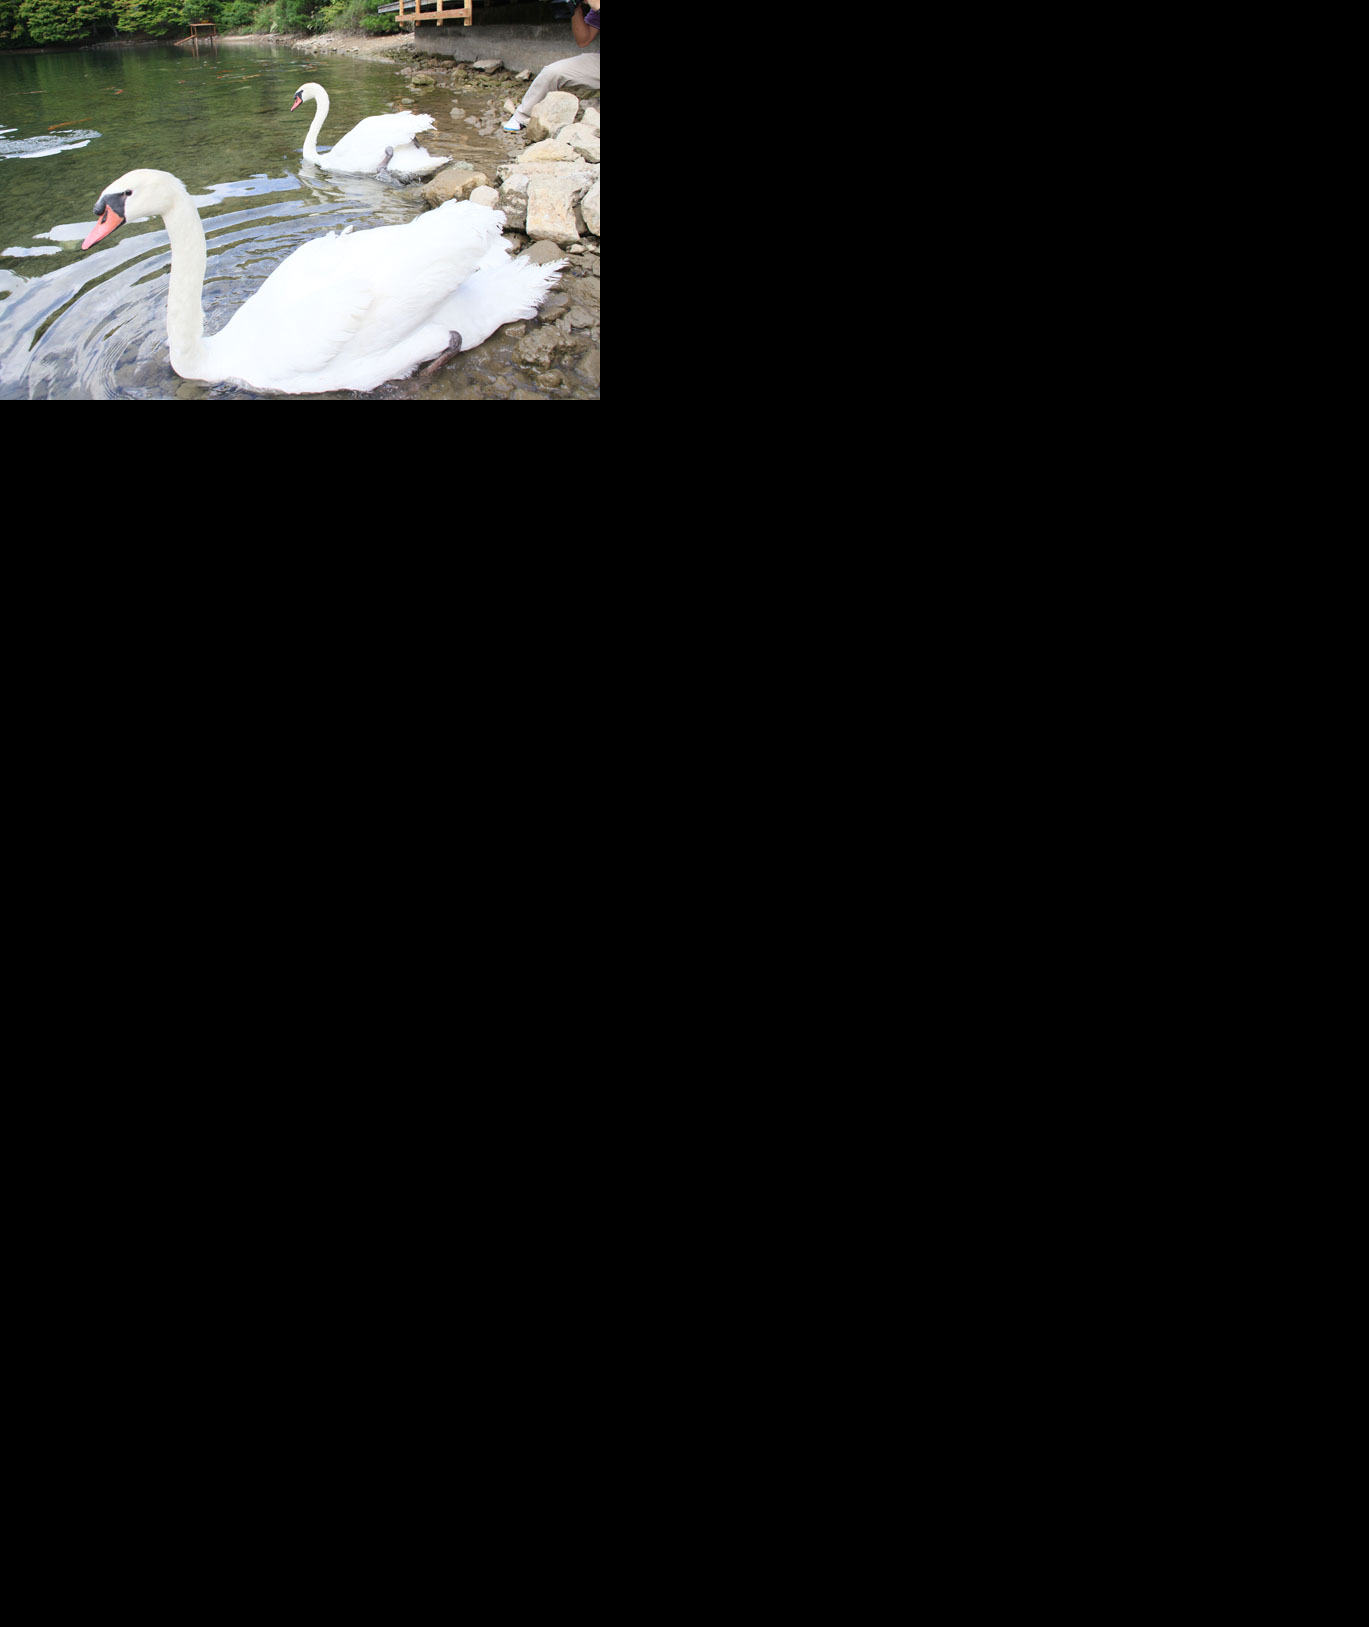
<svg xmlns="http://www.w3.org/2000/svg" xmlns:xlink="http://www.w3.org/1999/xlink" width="1369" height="1627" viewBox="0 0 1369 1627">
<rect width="100%" height="100%" fill="#000000"/>
<image xlink:href="image0.png" x="0" y="0" width="600" height="400"/>
</svg>
